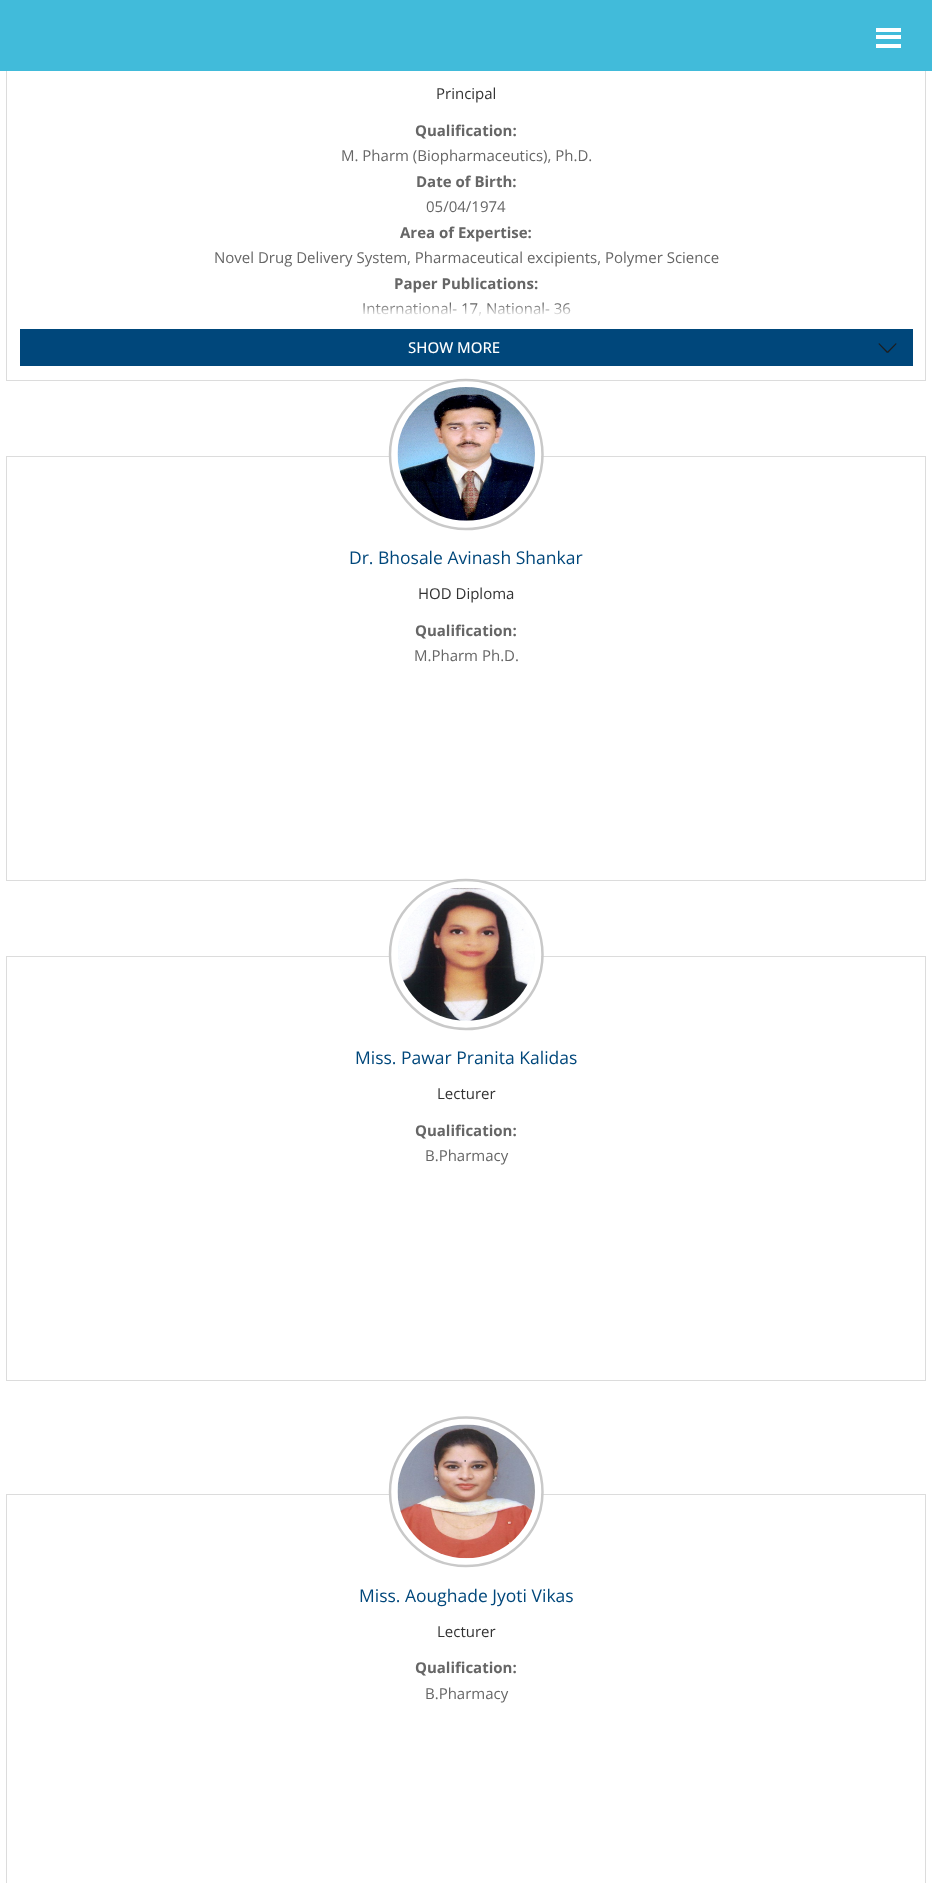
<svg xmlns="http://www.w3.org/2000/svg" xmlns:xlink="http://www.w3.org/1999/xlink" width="932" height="1883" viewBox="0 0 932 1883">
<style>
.cls-1{font:15px Open Sans;fill:#333333}
.cls-2{font:bold 15px Open Sans;fill:#666666}
.cls-3{font:15px Open Sans;fill:#666666}
.cls-4{font:500 15px Open Sans;fill:#ffffff}
.cls-5{font:17.5px Open Sans;fill:#00477b}
</style>
<defs>
<linearGradient id="g1" gradientUnits="userSpaceOnUse" x1="466" y1="304" x2="466" y2="329"><stop offset="0" stop-color="#ffffff" stop-opacity="0"/><stop offset="0.41" stop-color="#ffffff" stop-opacity="0.8"/><stop offset="0.7" stop-color="#ffffff"/></linearGradient>
</defs>
<rect width="100%" height="100%" fill="#ffffff"/>
<rect fill="none" stroke="#dcdcdc" x="6.5" y="-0.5" width="919" height="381"/>
<rect fill="#41bbda" x="0" y="0" width="932" height="71"/>
<rect fill="#ffffff" x="876" y="28" width="25" height="4"/>
<rect fill="#ffffff" x="876" y="35" width="25" height="4"/>
<rect fill="#ffffff" x="876" y="44" width="25" height="4"/>
<rect fill="#00477b" x="20" y="329" width="893" height="37"/>
<path fill="#1d1d1d" d="M887 352L896 343L896.5 344L888 353Z"/>
<path fill="#1d1d1d" d="M887 353L878.5 344L879 343L888 352Z"/>
<rect fill="none" stroke="#dcdcdc" x="6.5" y="456.5" width="919" height="424"/>
<circle fill="#ffffff" cx="466" cy="456" r="75"/>
<path fill="none" stroke="#c9c9c9" stroke-width="2.5" d="M466 380C508.5 380 542.5 413.5 542.5 454.5C542.5 495.5 508.5 529 466 529C424 529 390 495.5 390 454.5C390 413.5 424 380 466 380Z"/>
<image xlink:href="image0.png" x="397" y="387" width="138" height="134"/>
<rect fill="none" stroke="#dcdcdc" x="6.5" y="956.5" width="919" height="424"/>
<circle fill="#ffffff" cx="466" cy="956" r="75"/>
<path fill="none" stroke="#c9c9c9" stroke-width="2.5" d="M466 880C508.5 880 542.5 913.5 542.5 954.5C542.5 995.5 508.5 1029 466 1029C424 1029 390 995.5 390 954.5C390 913.5 424 880 466 880Z"/>
<image xlink:href="image1.png" x="398" y="887" width="137" height="134"/>
<rect fill="none" stroke="#dcdcdc" x="6.5" y="1494.5" width="919" height="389"/>
<circle fill="#ffffff" cx="466" cy="1494" r="75"/>
<path fill="none" stroke="#c9c9c9" stroke-width="2.5" d="M466 1417.5C508.5 1417.5 542.5 1451 542.5 1492C542.5 1533 508.5 1566 466 1566C424 1566 390 1533 390 1492C390 1451 424 1417.5 466 1417.5Z"/>
<image xlink:href="image2.png" x="397" y="1424" width="138" height="135"/>
<text class="cls-1" x="436" y="99">Principal</text>
<text class="cls-2" x="415" y="136">Qualification:</text>
<text class="cls-3" x="341" y="161">M. Pharm (Biopharmaceutics), Ph.D.</text>
<text class="cls-2" x="416" y="187">Date of Birth:</text>
<text class="cls-3" x="426" y="212">05/04/1974</text>
<text class="cls-2" x="400" y="238">Area of Expertise:</text>
<text class="cls-3" x="214" y="263">Novel Drug Delivery System, Pharmaceutical excipients, Polymer Science</text>
<text class="cls-2" x="394" y="289">Paper Publications:</text>
<text class="cls-3" x="362" y="314">International- 17, National- 36</text>
<rect fill="url(#g1)" x="363" y="304" width="207" height="12"/>
<text class="cls-4" x="408" y="353">SHOW MORE</text>
<text class="cls-5" x="349" y="564">Dr. Bhosale Avinash Shankar</text>
<text class="cls-1" x="418" y="599">HOD Diploma</text>
<text class="cls-2" x="415" y="636">Qualification:</text>
<text class="cls-3" x="414" y="661">M.Pharm Ph.D.</text>
<text class="cls-5" x="355" y="1064">Miss. Pawar Pranita Kalidas</text>
<text class="cls-1" x="437" y="1099">Lecturer</text>
<text class="cls-2" x="415" y="1136">Qualification:</text>
<text class="cls-3" x="425" y="1161">B.Pharmacy</text>
<text class="cls-5" x="359" y="1602">Miss. Aoughade Jyoti Vikas</text>
<text class="cls-1" x="437" y="1637">Lecturer</text>
<text class="cls-2" x="415" y="1673">Qualification:</text>
<text class="cls-3" x="425" y="1699">B.Pharmacy</text>
</svg>
